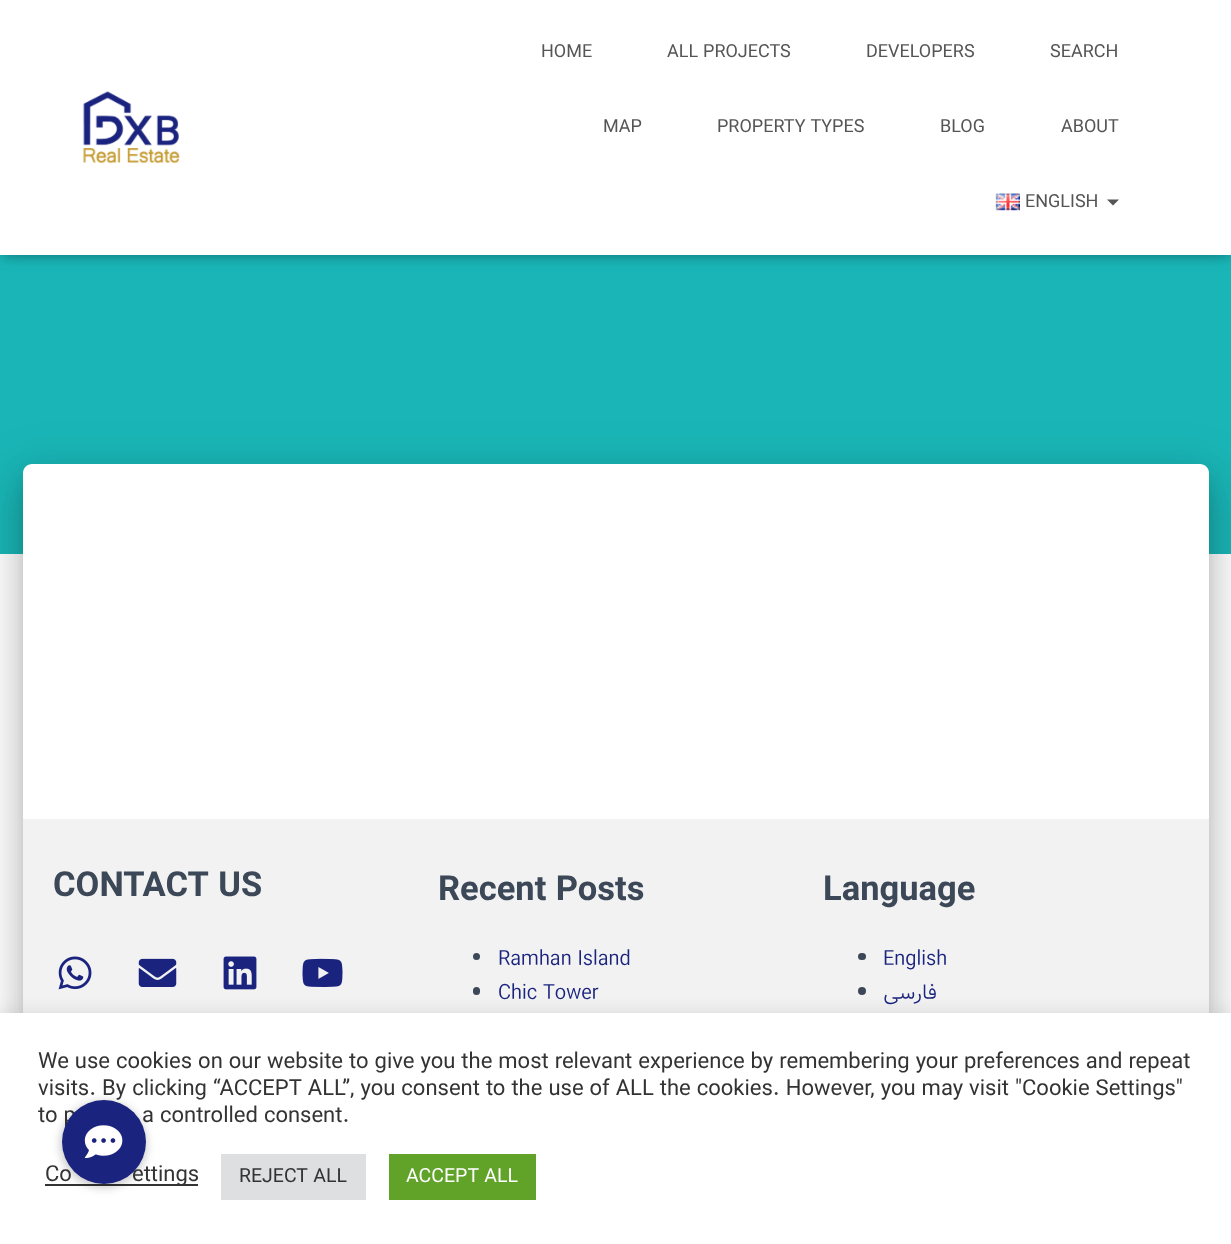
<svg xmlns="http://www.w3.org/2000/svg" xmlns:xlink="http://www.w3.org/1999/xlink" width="1231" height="1244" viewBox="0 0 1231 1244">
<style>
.cls-1{font:18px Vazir;fill:#555555}
.cls-2{font:bold 34.5px Vazir;fill:#3c4858}
.cls-3{font:300 21px Vazir;fill:#1a237e}
.cls-4{font:300 21px Vazir;direction:rtl;fill:#1a237e}
.cls-5{font:22px Vazir;fill:#333333}
.cls-6{font:19.5px Vazir;fill:#333333}
.cls-7{font:19.5px Vazir;fill:#ffffff}
</style>
<rect width="100%" height="100%" fill="#ffffff"/>
<rect fill="#1ab6b7" x="0" y="255" width="1231" height="299"/>
<rect fill="#000000" fill-opacity="0.1" filter="blur(4px)" x="3" y="9" width="1226" height="249"/>
<rect fill="#000000" fill-opacity="0.12" filter="blur(7.5px)" x="0" y="2" width="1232" height="255"/>
<rect fill="#000000" fill-opacity="0.42" filter="blur(7.5px)" x="9" y="11" width="1214" height="237"/>
<rect fill="#ffffff" x="0" y="0" width="1231" height="255"/>
<image xlink:href="image0.png" x="82" y="91" width="98" height="73"/>
<image xlink:href="image1.png" x="995" y="193" width="25" height="18"/>
<path fill="#555555" d="M1107 199.5H1119L1113 205.5Z"/>
<rect fill="#000000" fill-opacity="0.2" filter="blur(7.5px)" x="30" y="483" width="1172" height="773" rx="1.5"/>
<rect fill="#000000" fill-opacity="0.12" filter="blur(22.5px)" x="15" y="465" width="1202" height="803" rx="17"/>
<rect fill="#000000" fill-opacity="0.14" filter="blur(18px)" x="20" y="485" width="1192" height="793" rx="12"/>
<path fill="#ffffff" d="M32 464H1200C1205 464 1209 468 1209 473V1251H23V473C23 468 27 464 32 464Z"/>
<rect fill="#f2f2f2" x="23" y="819" width="1186" height="194"/>
<image xlink:href="image2.png" x="58" y="956" width="34" height="34"/>
<image xlink:href="image3.png" x="138" y="958" width="39" height="29"/>
<image xlink:href="image4.png" x="223" y="956" width="34" height="34"/>
<image xlink:href="image5.png" x="302" y="958" width="41" height="29"/>
<circle fill="#3c4858" cx="476.5" cy="956.5" r="3.5"/>
<rect fill="#3c4858" x="473" y="987" width="7" height="8" rx="3.5"/>
<rect fill="#3c4858" x="858" y="953" width="8" height="7" rx="3.5"/>
<circle fill="#3c4858" cx="862" cy="991" r="4"/>
<rect fill="#acabab" fill-opacity="0.3" filter="blur(7.5px)" x="0" y="1011" width="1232" height="233"/>
<rect fill="#ffffff" x="0" y="1013" width="1231" height="231"/>
<rect fill="#333333" x="45" y="1184" width="153" height="2"/>
<rect fill="#dedfe0" x="221" y="1154" width="145" height="46"/>
<rect fill="#61a229" x="389" y="1154" width="147" height="46"/>
<rect fill="#000000" fill-opacity="0.2" filter="blur(4.5px)" x="60" y="1101" width="87" height="87" rx="43.5"/>
<text class="cls-1" x="541" y="57">HOME</text>
<text class="cls-1" x="667" y="57">ALL PROJECTS</text>
<text class="cls-1" x="866" y="57">DEVELOPERS</text>
<text class="cls-1" x="1050" y="57">SEARCH</text>
<text class="cls-1" x="603" y="132">MAP</text>
<text class="cls-1" x="717" y="132">PROPERTY TYPES</text>
<text class="cls-1" x="940" y="132">BLOG</text>
<text class="cls-1" x="1061" y="132">ABOUT</text>
<text class="cls-1" x="1025" y="207">ENGLISH</text>
<text class="cls-2" x="53" y="896">CONTACT US</text>
<text class="cls-2" x="438" y="900">Recent Posts</text>
<text class="cls-3"><tspan x="498" y="965">Ramhan Island</tspan><tspan x="498" y="999">Chic Tower</tspan></text>
<text class="cls-2" x="823" y="900">Language</text>
<text class="cls-3" x="883" y="965">English</text>
<text class="cls-4" x="937" y="999">فارسی</text>
<text class="cls-5"><tspan x="38" y="1068">We use cookies on our website to give you the most relevant experience by remembering your preferences and repeat</tspan><tspan x="38" y="1095">visits. By clicking “ACCEPT ALL”, you consent to the use of ALL the cookies. However, you may visit "Cookie Settings"</tspan><tspan x="38" y="1122">to p</tspan></text>
<text class="cls-5" x="142" y="1122">a controlled consent.</text>
<text class="cls-5" x="45" y="1181">Co</text>
<text class="cls-5" x="132" y="1181">ettings</text>
<text class="cls-6" x="239" y="1182">REJECT ALL</text>
<text class="cls-7" x="406" y="1182">ACCEPT ALL</text>
<circle fill="#1a237e" cx="104" cy="1142" r="42"/>
<image xlink:href="image6.png" x="84" y="1125" width="39" height="34"/>
</svg>
